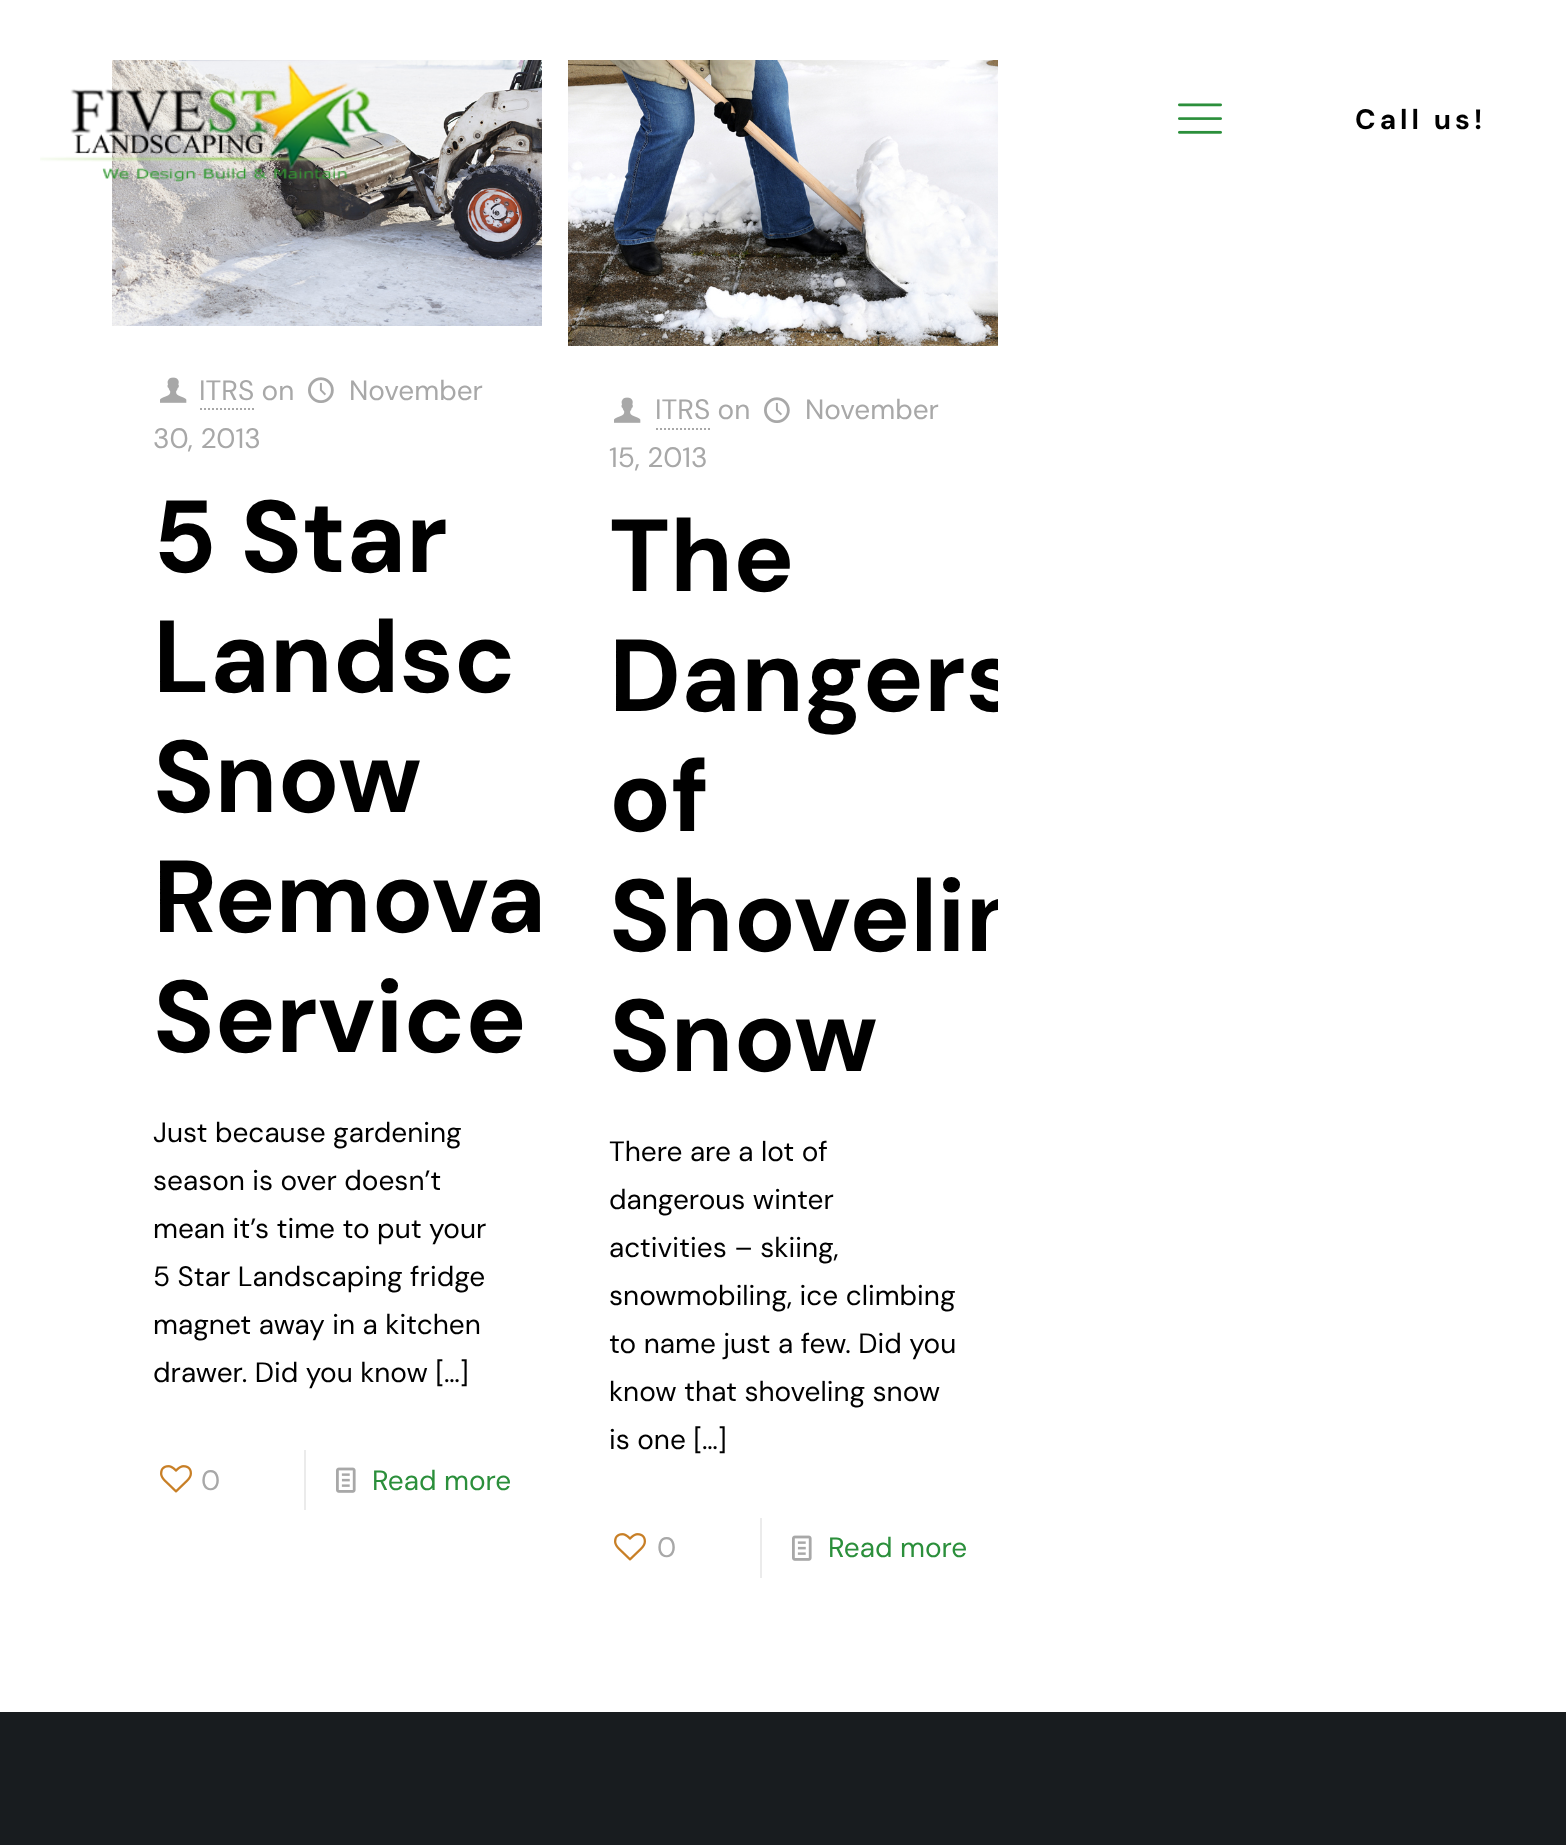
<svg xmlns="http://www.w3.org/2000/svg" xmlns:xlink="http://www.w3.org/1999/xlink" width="1566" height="1845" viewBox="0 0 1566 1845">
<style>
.cls-1{font:bold 28px DM Sans;letter-spacing:4px;fill:#000000}
.cls-2{font:28px DM Sans;fill:#a8a8a8}
.cls-3{font:bold 102px DM Sans;fill:#000000}
.cls-4{font:28px DM Sans;fill:#000000}
.cls-5{font:28px DM Sans;fill:#2b8f3b}
</style>
<defs>
<clipPath id="clip1"><rect x="568" y="60" width="430" height="1532"/></clipPath>
</defs>
<rect width="100%" height="100%" fill="#ffffff"/>
<image xlink:href="image2.png" x="112" y="60" width="430" height="266"/>
<image xlink:href="image0.png" x="40" y="62" width="364" height="120"/>
<image xlink:href="image1.png" x="1178" y="103" width="44" height="31"/>
<image xlink:href="image3.png" x="308" y="377" width="26" height="26"/>
<image xlink:href="image4.png" x="160" y="377" width="27" height="26"/>
<path fill="none" stroke="#a8a8a8" stroke-width="2" stroke-dasharray="2 2" d="M200 409H254"/>
<image xlink:href="image5.png" x="160" y="1465" width="32" height="28"/>
<rect fill="#ebebeb" x="304" y="1450" width="2" height="60"/>
<image xlink:href="image6.png" x="336" y="1467" width="20" height="26"/>
<image xlink:href="image7.png" x="568" y="60" width="430" height="286"/>
<image xlink:href="image3.png" x="764" y="397" width="26" height="26"/>
<image xlink:href="image4.png" x="614" y="397" width="27" height="26"/>
<path fill="none" stroke="#a8a8a8" stroke-width="2" stroke-dasharray="2 2" d="M656 429H710"/>
<image xlink:href="image5.png" x="614" y="1533" width="32" height="28"/>
<rect fill="#ebebeb" x="760" y="1518" width="2" height="60"/>
<image xlink:href="image6.png" x="792" y="1535" width="20" height="26"/>
<rect fill="#181c1f" x="0" y="1712" width="1566" height="133"/>
<text class="cls-1" x="1355" y="129">Call us!</text>
<text class="cls-2" x="349" y="400">November</text>
<text class="cls-2" x="153" y="448">30, 2013</text>
<text class="cls-2" x="199" y="400">ITRS on</text>
<text class="cls-3"><tspan x="153" y="572">5 Star</tspan><tspan x="153" y="692">Landsc</tspan><tspan x="153" y="812">Snow</tspan><tspan x="153" y="932">Remova</tspan><tspan x="153" y="1052">Service</tspan></text>
<text class="cls-4"><tspan x="153" y="1142">Just because gardening</tspan><tspan x="153" y="1190">season is over doesn’t</tspan><tspan x="153" y="1238">mean it’s time to put your</tspan><tspan x="153" y="1286">5 Star Landscaping fridge</tspan><tspan x="153" y="1334">magnet away in a kitchen</tspan><tspan x="153" y="1382">drawer. Did you know […]</tspan></text>
<text class="cls-2" x="201" y="1490">0</text>
<text class="cls-5" x="372" y="1490">Read more</text>
<text class="cls-2" x="805" y="419">November</text>
<text class="cls-2" x="609" y="467">15, 2013</text>
<text class="cls-2" x="655" y="419">ITRS on</text>
<text class="cls-3" x="609" y="591">The</text>
<g clip-path="url(#clip1)">
<text class="cls-3" x="609" y="711">Dangers</text>
</g>
<text class="cls-3" x="609" y="831">of</text>
<g clip-path="url(#clip1)">
<text class="cls-3" x="609" y="951">Shovelin</text>
</g>
<text class="cls-3" x="609" y="1071">Snow</text>
<text class="cls-4"><tspan x="609" y="1161">There are a lot of</tspan><tspan x="609" y="1209">dangerous winter</tspan><tspan x="609" y="1257">activities – skiing,</tspan><tspan x="609" y="1305">snowmobiling, ice climbing</tspan><tspan x="609" y="1353">to name just a few. Did you</tspan><tspan x="609" y="1401">know that shoveling snow</tspan><tspan x="609" y="1449">is one […]</tspan></text>
<text class="cls-2" x="657" y="1557">0</text>
<text class="cls-5" x="828" y="1557">Read more</text>
</svg>
